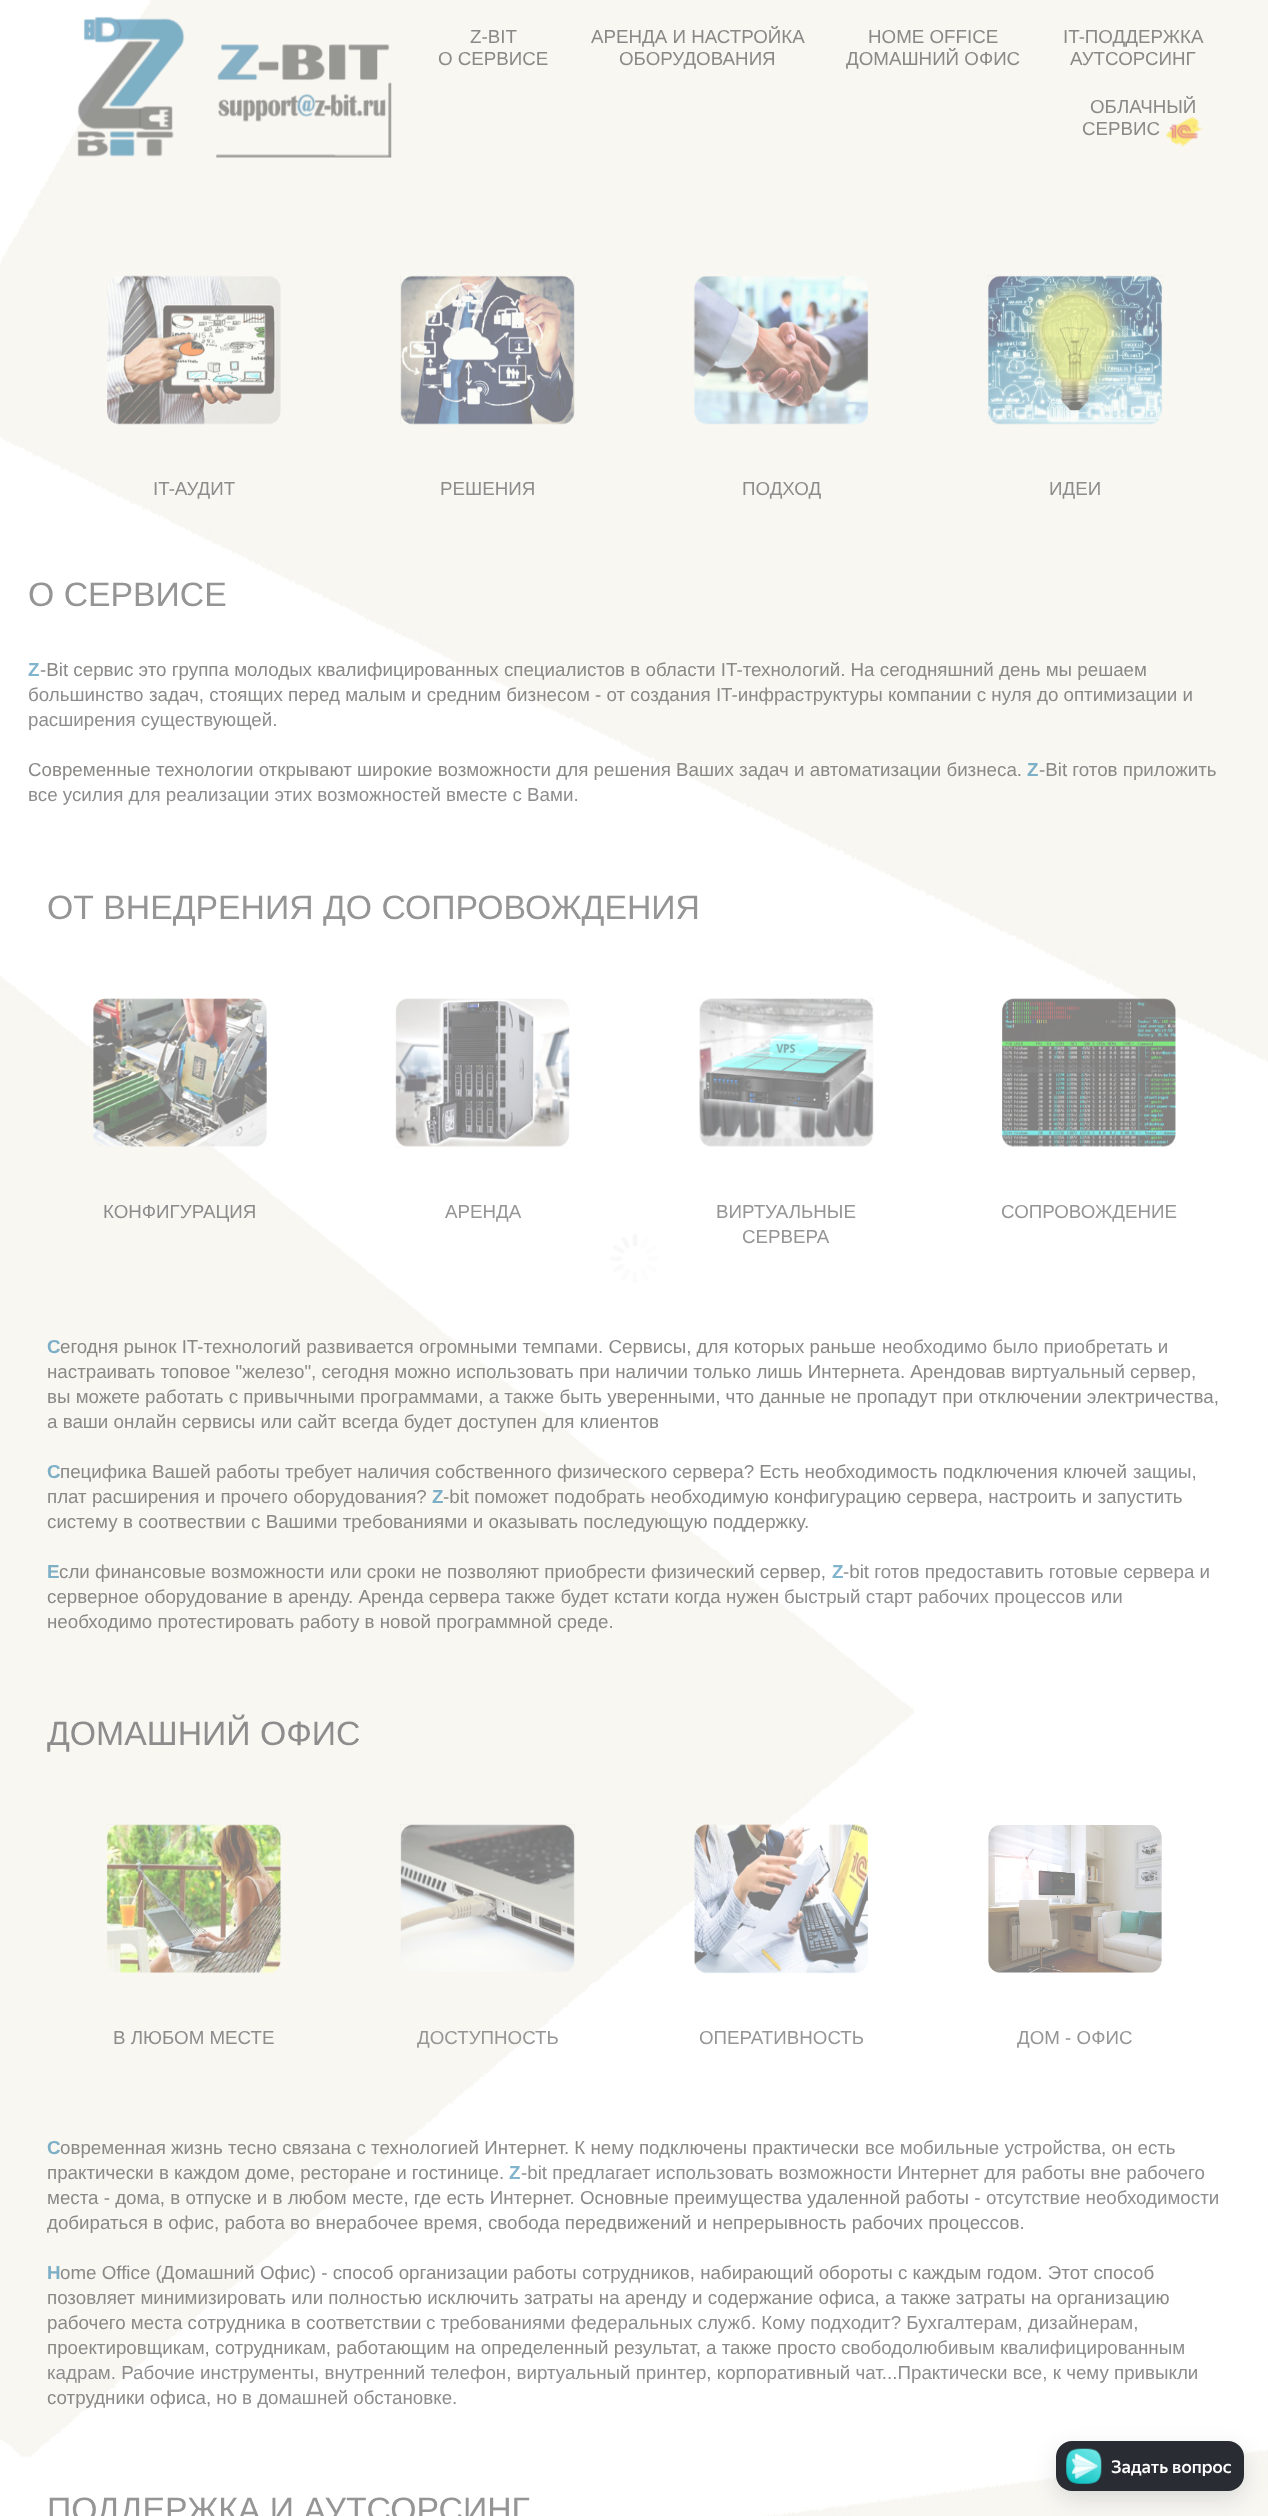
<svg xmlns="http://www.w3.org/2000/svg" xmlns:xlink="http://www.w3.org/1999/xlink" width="1268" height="2516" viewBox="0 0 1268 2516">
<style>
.cls-1{font:18.75px Liberation Sans;fill:#8a8987}
.cls-2{font:18.75px Liberation Sans;fill:#8d8d8d}
.cls-3{font:33.75px Liberation Sans;fill:#959595}
.cls-4{font:bold 18.75px Liberation Sans;fill:#80b3cc}
.cls-5{font:bold 18.75px Liberation Sans;fill:#7dafc6}
.cls-6{font:18.75px Liberation Sans;fill:#959595}
.cls-7{font:33.75px Liberation Sans;fill:#8d8d8d}
.cls-8{font:500 17.5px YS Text;fill:#ffffff}
</style>
<rect width="100%" height="100%" fill="#ffffff"/>
<image xlink:href="image16.png" x="610" y="1234" width="49" height="49"/>
<image xlink:href="image0.png" x="0" y="0" width="1268" height="2516"/>
<image xlink:href="image1.png" x="77" y="16" width="108" height="141"/>
<image xlink:href="image2.png" x="216" y="44" width="176" height="114"/>
<image xlink:href="image3.png" x="1166" y="117" width="38" height="30"/>
<image xlink:href="image4.png" x="107" y="275" width="174" height="150"/>
<image xlink:href="image5.png" x="400" y="275" width="175" height="150"/>
<image xlink:href="image6.png" x="693" y="276" width="176" height="149"/>
<image xlink:href="image7.png" x="987" y="275" width="176" height="150"/>
<image xlink:href="image8.png" x="93" y="998" width="174" height="149"/>
<image xlink:href="image9.png" x="395" y="998" width="175" height="150"/>
<image xlink:href="image10.png" x="699" y="997" width="175" height="150"/>
<image xlink:href="image11.png" x="1002" y="998" width="174" height="149"/>
<image xlink:href="image12.png" x="106" y="1824" width="175" height="149"/>
<image xlink:href="image13.png" x="400" y="1824" width="175" height="148"/>
<image xlink:href="image14.png" x="694" y="1824" width="174" height="150"/>
<image xlink:href="image15.png" x="988" y="1825" width="174" height="148"/>
<rect fill="#0e152f" fill-opacity="0.13" filter="blur(11px)" x="1056" y="2449" width="188" height="50" rx="16"/>
<rect fill="#292c33" x="1056" y="2441" width="188" height="50" rx="16"/>
<image xlink:href="image17.png" x="1066" y="2448" width="36" height="36"/>
<text class="cls-1" x="470" y="43">Z-BIT</text>
<text class="cls-1" x="438" y="65">О СЕРВИСЕ</text>
<text class="cls-1" x="591" y="43">АРЕНДА И НАСТРОЙКА</text>
<text class="cls-1" x="619" y="65">ОБОРУДОВАНИЯ</text>
<text class="cls-1" x="868" y="43">HOME OFFICE</text>
<text class="cls-1" x="846" y="65">ДОМАШНИЙ ОФИС</text>
<text class="cls-1" x="1063" y="43">IT-ПОДДЕРЖКА</text>
<text class="cls-1" x="1070" y="65">АУТСОРСИНГ</text>
<text class="cls-1" x="1090" y="113">ОБЛАЧНЫЙ</text>
<text class="cls-1" x="1082" y="135">СЕРВИС</text>
<text class="cls-2" x="153" y="495">IT-АУДИТ</text>
<text class="cls-2" x="440" y="495">РЕШЕНИЯ</text>
<text class="cls-2" x="742" y="495">ПОДХОД</text>
<text class="cls-2" x="1049" y="495">ИДЕИ</text>
<text class="cls-3" x="28" y="606">О СЕРВИСЕ</text>
<text class="cls-4" x="28" y="676">Z</text>
<text class="cls-1" x="40" y="676">-Bit сервис это группа молодых квалифицированных специалистов в области IT-технологий. На сегодняшний день мы решаем</text>
<text class="cls-2" x="28" y="701">большинство</text>
<text class="cls-1" x="149" y="701">задач, стоящих перед малым и средним бизнесом - от создания IT-инфраструктуры компании с нуля до оптимизации и</text>
<text class="cls-2" x="28" y="726">расширения существующей.</text>
<text class="cls-1" x="28" y="776">Современные технологии открывают широкие возможности для решения Ваших задач и автоматизации бизнеса.</text>
<text class="cls-5" x="1027" y="776">Z</text>
<text class="cls-1" x="1039" y="776">-Bit готов приложить</text>
<text class="cls-2" x="28" y="801">все усилия для реализации этих возможностей вместе с Вами.</text>
<text class="cls-3" x="47" y="919">ОТ ВНЕДРЕНИЯ ДО СОПРОВОЖДЕНИЯ</text>
<text class="cls-2" x="103" y="1218">КОНФИГУРАЦИЯ</text>
<text class="cls-6" x="445" y="1218">АРЕНДА</text>
<text class="cls-6" x="716" y="1218">ВИРТУАЛЬНЫЕ</text>
<text class="cls-6" x="742" y="1243">СЕРВЕРА</text>
<text class="cls-6" x="1001" y="1218">СОПРОВОЖДЕНИЕ</text>
<text class="cls-5" x="47" y="1353">С</text>
<text class="cls-1" x="60" y="1353">егодня рынок IT-технологий развивается огромными темпами. Сервисы, для которых раньше</text>
<text class="cls-2" x="882" y="1353">необходимо было приобретать и</text>
<text class="cls-1" x="47" y="1378">настраивать топовое "железо", сегодня можно использовать при наличии только лишь Интернета. Арендовав</text>
<text class="cls-2" x="1011" y="1378">виртуальный сервер,</text>
<text class="cls-1"><tspan x="47" y="1403">вы можете работать с привычными программами, а также быть уверенными, что данные не пропадут при отключении электричества,</tspan><tspan x="47" y="1428">а ваши онлайн сервисы или сайт всегда будет доступен для клиентов</tspan></text>
<text class="cls-5" x="47" y="1478">С</text>
<text class="cls-1" x="60" y="1478">пецифика Вашей работы требует наличия собственного физического сервера? Есть необходимость подключения ключей</text>
<text class="cls-2" x="1133" y="1478">защиы,</text>
<text class="cls-1" x="47" y="1503">плат расширения и прочего оборудования?</text>
<text class="cls-5" x="432" y="1503">Z</text>
<text class="cls-1" x="443" y="1503">-bit поможет подобрать необходимую конфигурацию сервера, настроить и запустить</text>
<text class="cls-1" x="47" y="1528">систему</text>
<text class="cls-1" x="123" y="1528">в соотвествии с Вашими требованиями и оказывать последующую поддержку.</text>
<text class="cls-5" x="47" y="1578">Е</text>
<text class="cls-1" x="59" y="1578">сли финансовые возможности или сроки не позволяют приобрести физический сервер,</text>
<text class="cls-4" x="832" y="1578">Z</text>
<text class="cls-2" x="843" y="1578">-bit готов предоставить готовые сервера и</text>
<text class="cls-1" x="47" y="1603">серверное оборудование в аренду. Аренда сервера также будет кстати когда нужен</text>
<text class="cls-2" x="784" y="1603">быстрый старт рабочих процессов или</text>
<text class="cls-1" x="47" y="1628">необходимо протестировать работу в новой программной среде.</text>
<text class="cls-7" x="47" y="1745">ДОМАШНИЙ ОФИС</text>
<text class="cls-2" x="113" y="2044">В ЛЮБОМ МЕСТЕ</text>
<text class="cls-6" x="417" y="2044">ДОСТУПНОСТЬ</text>
<text class="cls-6" x="699" y="2044">ОПЕРАТИВНОСТЬ</text>
<text class="cls-6" x="1017" y="2044">ДОМ - ОФИС</text>
<text class="cls-5" x="47" y="2154">С</text>
<text class="cls-1" x="60" y="2154">овременная жизнь тесно связана с технологией Интернет. К нему подключены практически</text>
<text class="cls-2" x="865" y="2154">все мобильные устройства, он есть</text>
<text class="cls-1" x="47" y="2179">практически в каждом доме, ресторане и гостинице.</text>
<text class="cls-4" x="509" y="2179">Z</text>
<text class="cls-2" x="521" y="2179">-bit предлагает использовать возможности Интернет для работы вне рабочего</text>
<text class="cls-1" x="47" y="2204">места - дома, в отпуске и в любом месте, где есть Интернет. Основные преимущества удаленной работы -</text>
<text class="cls-2" x="986" y="2204">отсутствие необходимости</text>
<text class="cls-1" x="47" y="2229">добираться в офис, работа во внерабочее время, свобода передвижений и непрерывность рабочих процессов.</text>
<text class="cls-5" x="47" y="2279">H</text>
<text class="cls-1" x="60" y="2279">ome Office (Домашний Офис) - способ организации работы сотрудников, набирающий обороты с каждым годом. Этот способ</text>
<text class="cls-1"><tspan x="47" y="2304">позовляет минимизировать или полностью исключить затраты на аренду и содержание офиса, а также затраты на организацию</tspan><tspan x="47" y="2329">рабочего места сотрудника в соответствии</tspan></text>
<text class="cls-2" x="426" y="2329">с требованиями федеральных служб. Кому подходит? Бухгалтерам, дизайнерам,</text>
<text class="cls-1" x="47" y="2354">проектировщикам, сотрудникам, работающим на определенный результат, а также просто</text>
<text class="cls-2" x="841" y="2354">свободолюбивым квалифицированным</text>
<text class="cls-2" x="47" y="2379">кадрам. Рабочие инструменты, внутренний телефон, виртуальный принтер, корпоративный чат...Практически все, к чему привыкли</text>
<text class="cls-1" x="47" y="2404">сотрудники офиса, но</text>
<text class="cls-2" x="242" y="2404">в домашней обстановке.</text>
<text class="cls-3" x="47" y="2521">ПОДДЕРЖКА И АУТСОРСИНГ</text>
<text class="cls-8" x="1111" y="2473">Задать вопрос</text>
</svg>
